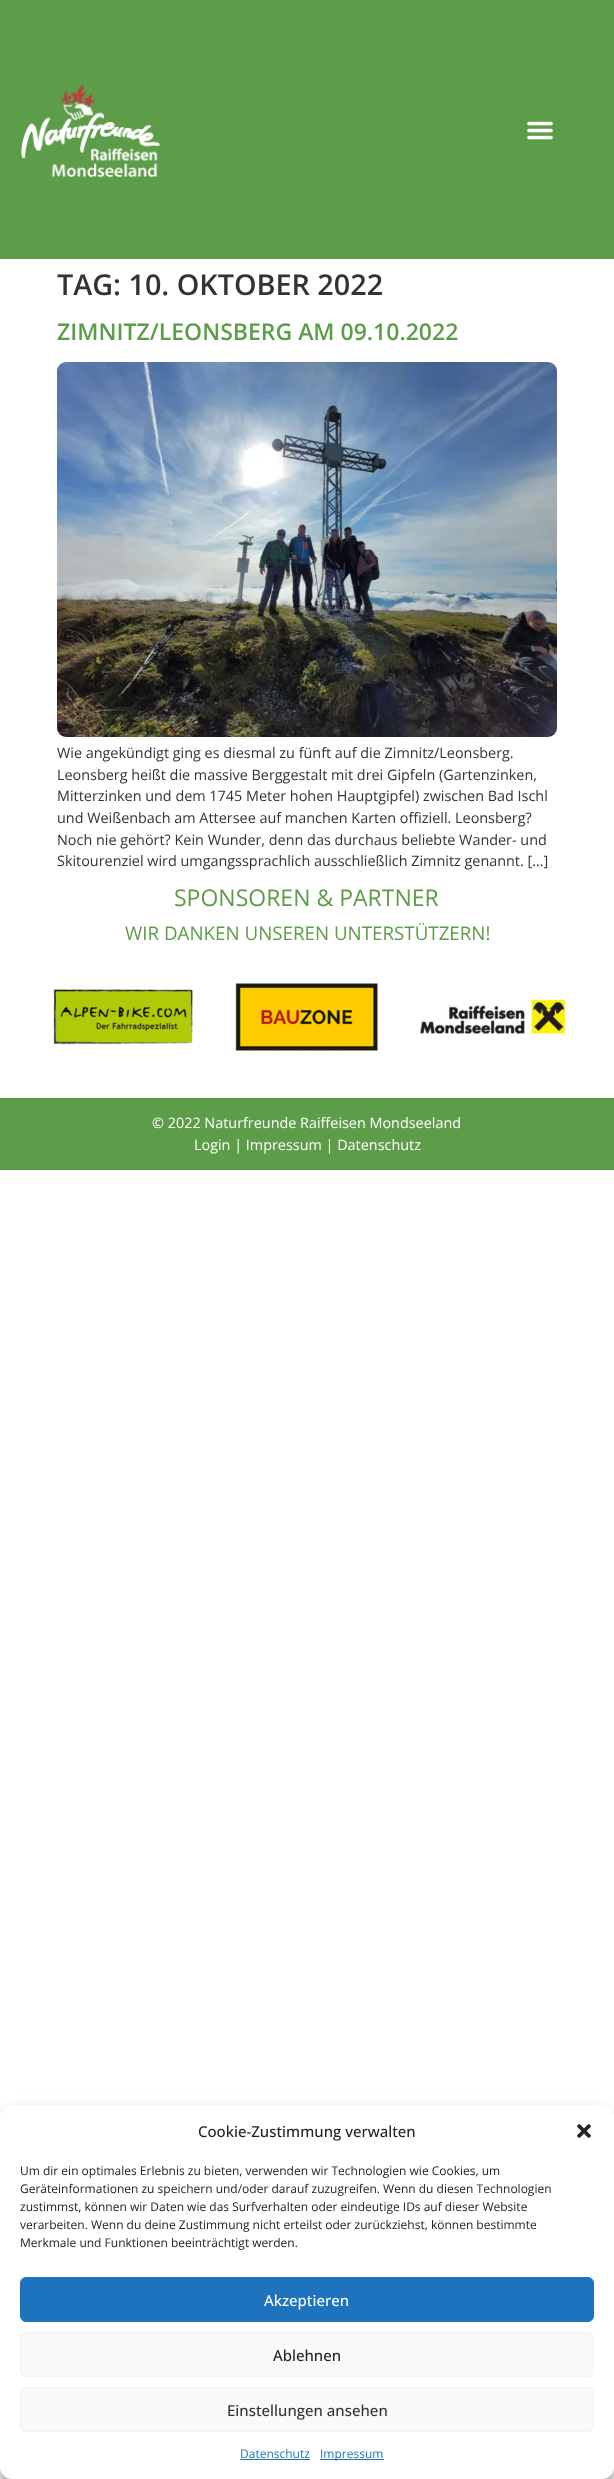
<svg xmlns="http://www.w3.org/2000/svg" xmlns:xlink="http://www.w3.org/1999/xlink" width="614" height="2479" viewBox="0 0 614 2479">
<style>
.cls-1{font:600 28.75px Open Sans;fill:#333333}
.cls-2{font:600 23px Open Sans;fill:#5d9c49}
.cls-3{font:14.4px Open Sans;fill:#333333}
.cls-4{font:23px Open Sans;fill:#5d9c49}
.cls-5{font:18.75px Open Sans;fill:#5d9c49}
.cls-6{font:14.4px Open Sans;fill:#ffffff}
.cls-7{font:500 15px Open Sans;fill:#222222}
.cls-8{font:12px Open Sans;fill:#222222}
.cls-9{font:500 15px Open Sans;fill:#ffffff}
.cls-10{font:500 15px Open Sans;fill:#333333}
.cls-11{font:12px Open Sans;fill:#1e73be}
</style>
<rect width="100%" height="100%" fill="#ffffff"/>
<rect fill="#5d9c49" x="0" y="0" width="614" height="259"/>
<image xlink:href="image0.png" x="21" y="85" width="140" height="93"/>
<image xlink:href="image1.png" x="527" y="121" width="26" height="19"/>
<image xlink:href="image2.png" x="57" y="362" width="500" height="375"/>
<image xlink:href="image3.png" x="53" y="989" width="140" height="56"/>
<image xlink:href="image4.png" x="235" y="983" width="143" height="68"/>
<image xlink:href="image5.png" x="420" y="999" width="146" height="35"/>
<rect fill="#5d9c49" x="0" y="1098" width="614" height="72"/>
<rect fill="#000000" fill-opacity="0.23" filter="blur(3px)" x="0" y="2111" width="614" height="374" rx="12"/>
<rect fill="#000000" fill-opacity="0.19" filter="blur(10px)" x="0" y="2115" width="614" height="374" rx="12"/>
<rect fill="#ffffff" x="0" y="2105" width="614" height="374" rx="12"/>
<image xlink:href="image6.png" x="577" y="2124" width="14" height="14"/>
<rect fill="#1e73be" stroke="#1e73be" x="20.5" y="2277.5" width="573" height="44" rx="5.5"/>
<rect fill="#f9f9f9" stroke="#f2f2f2" x="20.5" y="2332.5" width="573" height="44" rx="5.5"/>
<rect fill="#f9f9f9" stroke="#f2f2f2" x="20.5" y="2387.5" width="573" height="44" rx="5.5"/>
<rect fill="#1e73be" x="240" y="2459" width="70" height="1"/>
<rect fill="#1e73be" x="320" y="2459" width="64" height="1"/>
<text class="cls-1" x="57" y="295">TAG: 10. OKTOBER 2022</text>
<text class="cls-2" x="57" y="340">ZIMNITZ/LEONSBERG AM 09.10.2022</text>
<text class="cls-3"><tspan x="57" y="758">Wie angekündigt ging es diesmal zu fünft auf die Zimnitz/Leonsberg.</tspan><tspan x="57" y="780">Leonsberg heißt die massive Berggestalt mit drei Gipfeln (Gartenzinken,</tspan><tspan x="57" y="801">Mitterzinken und dem 1745 Meter hohen Hauptgipfel) zwischen Bad Ischl</tspan><tspan x="57" y="823">und Weißenbach am Attersee auf manchen Karten offiziell. Leonsberg?</tspan><tspan x="57" y="845">Noch nie gehört? Kein Wunder, denn das durchaus beliebte Wander- und</tspan><tspan x="57" y="866">Skitourenziel wird umgangssprachlich ausschließlich Zimnitz genannt. […]</tspan></text>
<text class="cls-4" x="174" y="906">SPONSOREN &amp; PARTNER</text>
<text class="cls-5" x="125" y="940">WIR DANKEN UNSEREN UNTERSTÜTZERN!</text>
<text class="cls-6" x="152" y="1128">© 2022 Naturfreunde Raiffeisen Mondseeland</text>
<text class="cls-6" x="194" y="1150">Login | Impressum | Datenschutz</text>
<text class="cls-7" x="198" y="2137">Cookie-Zustimmung verwalten</text>
<text class="cls-8"><tspan x="20" y="2175">Um dir ein optimales Erlebnis zu bieten, verwenden wir Technologien wie Cookies, um</tspan><tspan x="20" y="2193">Geräteinformationen zu speichern und/oder darauf zuzugreifen. Wenn du diesen Technologien</tspan><tspan x="20" y="2211">zustimmst, können wir Daten wie das Surfverhalten oder eindeutige IDs auf dieser Website</tspan><tspan x="20" y="2229">verarbeiten. Wenn du deine Zustimmung nicht erteilst oder zurückziehst, können bestimmte</tspan><tspan x="20" y="2247">Merkmale und Funktionen beeinträchtigt werden.</tspan></text>
<text class="cls-9" x="264" y="2306">Akzeptieren</text>
<text class="cls-7" x="273" y="2361">Ablehnen</text>
<text class="cls-10" x="227" y="2416">Einstellungen ansehen</text>
<text class="cls-11" x="240" y="2458">Datenschutz</text>
<text class="cls-11" x="320" y="2458">Impressum</text>
</svg>
